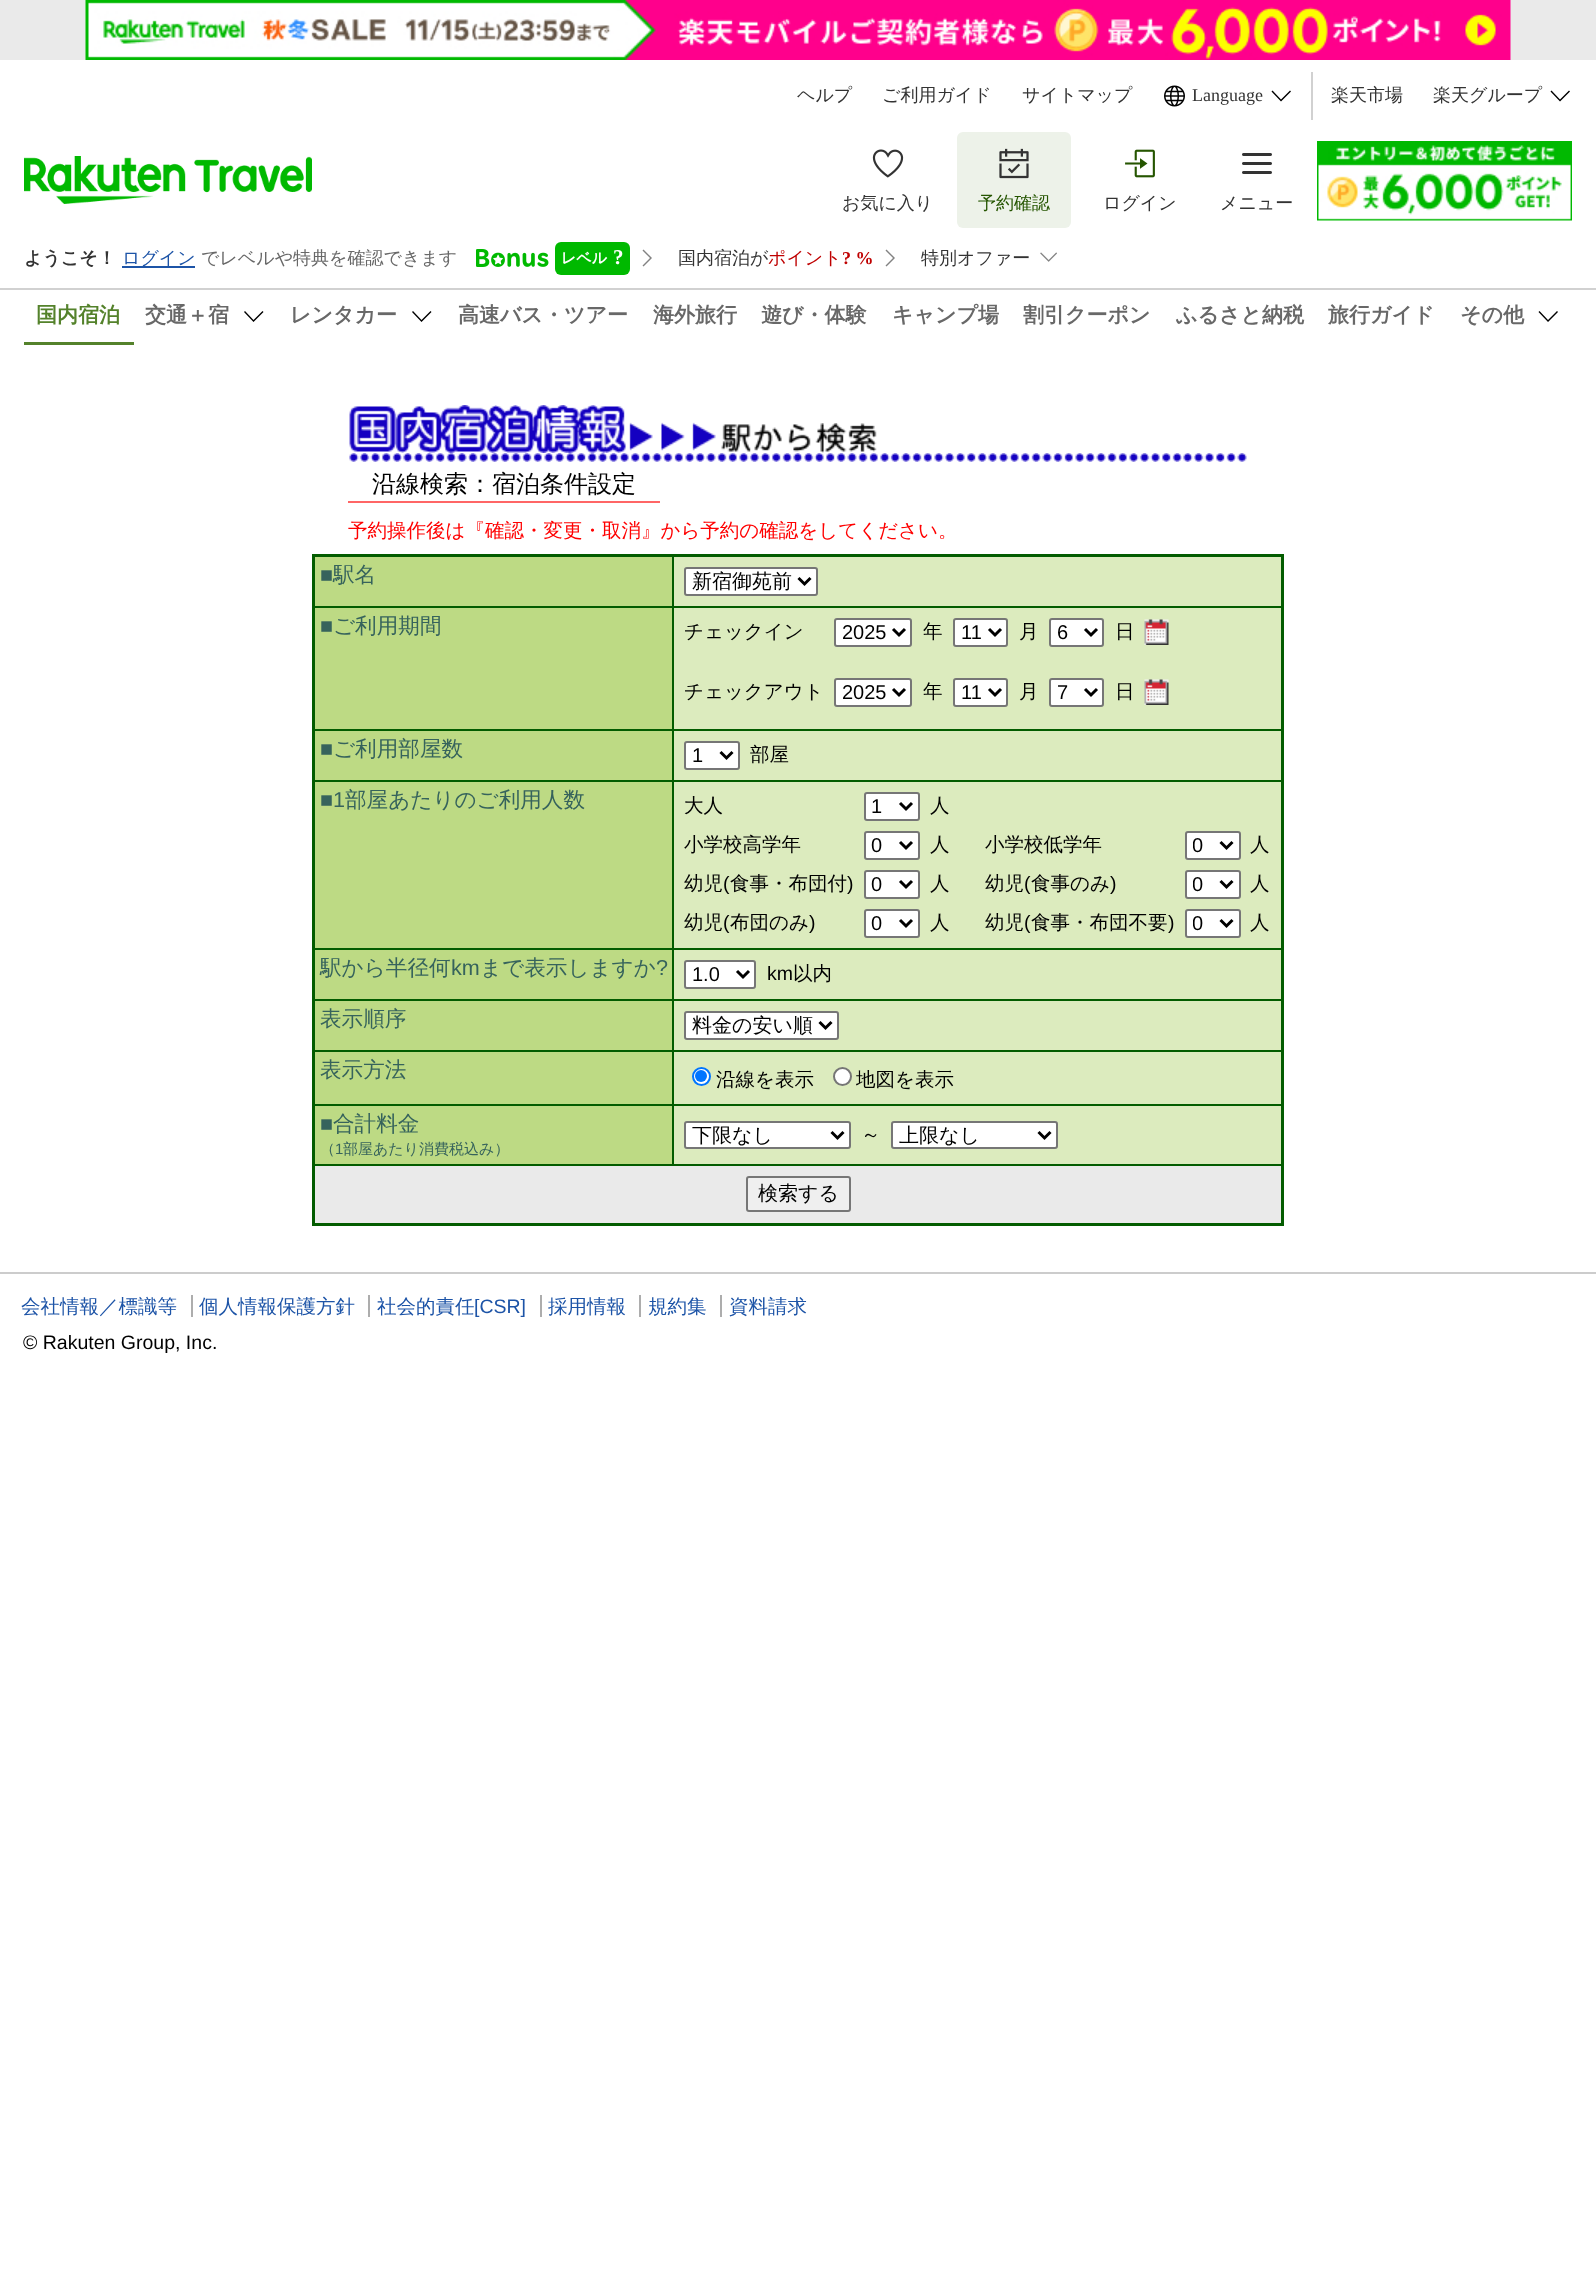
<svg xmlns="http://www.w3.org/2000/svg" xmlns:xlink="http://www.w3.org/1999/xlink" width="1596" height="2287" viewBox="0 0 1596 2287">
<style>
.cls-1{font:500 18px WenQuanYi Zen Hei;fill:#333333}
.cls-2{font:18px Liberation Serif;fill:#333333}
.cls-3{font:500 18px WenQuanYi Zen Hei;fill:#255500}
.cls-4{font:bold 18px WenQuanYi Zen Hei;fill:#333333}
.cls-5{font:500 18px WenQuanYi Zen Hei;fill:#1d54a7}
.cls-6{font:500 18px WenQuanYi Zen Hei;fill:#686868}
.cls-7{font:bold 15px WenQuanYi Zen Hei;fill:#ffffff}
.cls-8{font:bold 21px Liberation Serif;fill:#ffffff}
.cls-9{font:500 18px WenQuanYi Zen Hei;fill:#bf0000}
.cls-10{font:bold 18px Liberation Serif;fill:#bf0000}
.cls-11{font:bold 21px WenQuanYi Zen Hei;fill:#54822b}
.cls-12{font:bold 21px WenQuanYi Zen Hei;fill:#686868}
.cls-13{font:500 24px WenQuanYi Zen Hei;fill:#000000}
.cls-14{font:500 19.5px WenQuanYi Zen Hei;fill:#ff0000}
.cls-15{font:21.6px Liberation Sans;fill:#36635c}
.cls-16{font:500 21.6px WenQuanYi Zen Hei;fill:#36635c}
.cls-17{font:500 20px WenQuanYi Zen Hei;fill:#000000}
.cls-18{font:500 19.5px WenQuanYi Zen Hei;fill:#000000}
.cls-19{font:20px Liberation Sans;fill:#000000}
.cls-20{font:19.5px Liberation Sans;fill:#000000}
.cls-21{font:500 15px WenQuanYi Zen Hei;fill:#36635c}
.cls-22{font:15px Liberation Sans;fill:#36635c}
.cls-23{font:500 19.5px WenQuanYi Zen Hei;fill:#1d54a7}
.cls-24{font:19.5px Liberation Sans;fill:#1d54a7}
</style>
<defs>
<clipPath id="clip1"><rect x="1193" y="833" width="22" height="25"/></clipPath>
<clipPath id="clip2"><rect x="1193" y="872" width="22" height="25"/></clipPath>
<clipPath id="clip3"><rect x="1193" y="911" width="22" height="25"/></clipPath>
</defs>
<rect width="100%" height="100%" fill="#ffffff"/>
<rect fill="#eaeaea" x="0" y="0" width="1596" height="60"/>
<image xlink:href="image0.png" x="85" y="0" width="1426" height="60"/>
<image xlink:href="image1.png" x="1164" y="85" width="21" height="22"/>
<path fill="#000000" fill-rule="evenodd" d="M1291 91.5L1290 90.5L1281 99.5L1272.5 90.5L1271.5 91.5L1281 101.5Z"/>
<rect fill="#d1d1d1" x="1311" y="72" width="2" height="48"/>
<path fill="#000000" fill-rule="evenodd" d="M1570 91.5L1569 90.5L1560 99.5L1551.5 90.5L1550.5 91.5L1560 101.5Z"/>
<image xlink:href="image2.png" x="24" y="156" width="288" height="48"/>
<image xlink:href="image3.png" x="872" y="149" width="32" height="29"/>
<rect fill="#edf2e9" x="957" y="132" width="114" height="96" rx="6"/>
<image xlink:href="image4.png" x="999" y="148" width="30" height="31"/>
<image xlink:href="image5.png" x="1125" y="149" width="30" height="29"/>
<image xlink:href="image6.png" x="1242" y="153" width="30" height="21"/>
<image xlink:href="image7.png" x="1317" y="141" width="255" height="80"/>
<rect fill="#1d54a7" x="122" y="266" width="73" height="2"/>
<image xlink:href="image8.png" x="476" y="249" width="73" height="18"/>
<rect fill="#00b900" x="555" y="242" width="75" height="33" rx="6"/>
<path fill="#828282" fill-rule="evenodd" d="M643.5 249.5L642.5 250.5L650 258L642.5 265.5L643.5 266.5L652 258Z"/>
<path fill="#828282" fill-rule="evenodd" d="M886.5 249.5L885.5 250.5L893 258L885.5 265.5L886.5 266.5L895 258Z"/>
<image xlink:href="image9.png" x="1040" y="252" width="17" height="10"/>
<rect fill="#d1d1d1" x="0" y="288" width="1596" height="2"/>
<rect fill="#54822b" x="24" y="342" width="110" height="3"/>
<path fill="#000000" fill-rule="evenodd" d="M263.5 312L262.5 311L253.5 320L245 311L244 312L253.5 322Z"/>
<path fill="#000000" fill-rule="evenodd" d="M431.5 312L430.5 311L421.5 320L413 311L412 312L421.5 322Z"/>
<path fill="#000000" fill-rule="evenodd" d="M1558 312L1557 311L1548 320L1539.5 311L1538.5 312L1548 322Z"/>
<image xlink:href="image10.png" x="349" y="405" width="367" height="48"/>
<image xlink:href="image11.png" x="721" y="423" width="156" height="30"/>
<image xlink:href="image12.png" x="349" y="453" width="898" height="9"/>
<rect fill="#ff6666" x="348" y="501" width="312" height="2"/>
<rect fill="#035c00" x="312" y="554" width="972" height="672"/>
<rect fill="#bdda84" x="315" y="557" width="357" height="49"/>
<rect fill="#dcebbe" x="674" y="557" width="607" height="49"/>
<rect fill="#ffffff" stroke="#767676" stroke-width="2" x="685" y="568" width="132" height="27" rx="2"/>
<path fill="none" stroke="#000000" stroke-width="3" d="M798.5 578L804.5 584L810.5 578"/>
<rect fill="#bdda84" x="315" y="608" width="357" height="121"/>
<rect fill="#dcebbe" x="674" y="608" width="607" height="121"/>
<rect fill="#ffffff" stroke="#767676" stroke-width="2" x="835" y="619" width="76" height="27" rx="2"/>
<path fill="none" stroke="#000000" stroke-width="3" d="M893 629L899 635L905 629"/>
<rect fill="#ffffff" stroke="#767676" stroke-width="2" x="954" y="619" width="53" height="27" rx="2"/>
<path fill="none" stroke="#000000" stroke-width="3" d="M989 629L995 635L1001 629"/>
<rect fill="#ffffff" stroke="#767676" stroke-width="2" x="1050" y="619" width="53" height="27" rx="2"/>
<path fill="none" stroke="#000000" stroke-width="3" d="M1085 629L1091 635L1097 629"/>
<image xlink:href="image13.png" x="1144" y="619" width="25" height="26"/>
<rect fill="#ffffff" stroke="#767676" stroke-width="2" x="835" y="679" width="76" height="27" rx="2"/>
<path fill="none" stroke="#000000" stroke-width="3" d="M893 689L899 695L905 689"/>
<rect fill="#ffffff" stroke="#767676" stroke-width="2" x="954" y="679" width="53" height="27" rx="2"/>
<path fill="none" stroke="#000000" stroke-width="3" d="M989 689L995 695L1001 689"/>
<rect fill="#ffffff" stroke="#767676" stroke-width="2" x="1050" y="679" width="53" height="27" rx="2"/>
<path fill="none" stroke="#000000" stroke-width="3" d="M1085 689L1091 695L1097 689"/>
<image xlink:href="image13.png" x="1144" y="679" width="25" height="26"/>
<rect fill="#bdda84" x="315" y="731" width="357" height="49"/>
<rect fill="#dcebbe" x="674" y="731" width="607" height="49"/>
<rect fill="#ffffff" stroke="#767676" stroke-width="2" x="685" y="742" width="54" height="27" rx="2"/>
<path fill="none" stroke="#000000" stroke-width="3" d="M720.5 752L726.5 758L732.5 752"/>
<rect fill="#bdda84" x="315" y="782" width="357" height="166"/>
<rect fill="#dcebbe" x="674" y="782" width="607" height="166"/>
<rect fill="#ffffff" stroke="#767676" stroke-width="2" x="865" y="793" width="54" height="27" rx="2"/>
<path fill="none" stroke="#000000" stroke-width="3" d="M900 803L906 809L912 803"/>
<rect fill="#ffffff" stroke="#767676" stroke-width="2" x="865" y="832" width="54" height="27" rx="2"/>
<path fill="none" stroke="#000000" stroke-width="3" d="M900 842L906 848L912 842"/>
<rect fill="#ffffff" stroke="#767676" stroke-width="2" x="1186" y="832" width="54" height="27" rx="2"/>
<path fill="none" stroke="#000000" stroke-width="3" d="M1220.5 842L1226.5 848L1232.5 842"/>
<rect fill="#ffffff" stroke="#767676" stroke-width="2" x="865" y="871" width="54" height="27" rx="2"/>
<path fill="none" stroke="#000000" stroke-width="3" d="M900 881L906 887L912 881"/>
<rect fill="#ffffff" stroke="#767676" stroke-width="2" x="1186" y="871" width="54" height="27" rx="2"/>
<path fill="none" stroke="#000000" stroke-width="3" d="M1220.5 881L1226.5 887L1232.5 881"/>
<rect fill="#ffffff" stroke="#767676" stroke-width="2" x="865" y="910" width="54" height="27" rx="2"/>
<path fill="none" stroke="#000000" stroke-width="3" d="M900 920L906 926L912 920"/>
<rect fill="#ffffff" stroke="#767676" stroke-width="2" x="1186" y="910" width="54" height="27" rx="2"/>
<path fill="none" stroke="#000000" stroke-width="3" d="M1220.5 920L1226.5 926L1232.5 920"/>
<rect fill="#bdda84" x="315" y="950" width="357" height="49"/>
<rect fill="#dcebbe" x="674" y="950" width="607" height="49"/>
<rect fill="#ffffff" stroke="#767676" stroke-width="2" x="685" y="961" width="70" height="27" rx="2"/>
<path fill="none" stroke="#000000" stroke-width="3" d="M737 971L743 977L749 971"/>
<rect fill="#bdda84" x="315" y="1001" width="357" height="49"/>
<rect fill="#dcebbe" x="674" y="1001" width="607" height="49"/>
<rect fill="#ffffff" stroke="#767676" stroke-width="2" x="685" y="1012" width="153" height="27" rx="2"/>
<path fill="none" stroke="#000000" stroke-width="3" d="M819.5 1022L825.5 1028L831.5 1022"/>
<rect fill="#bdda84" x="315" y="1052" width="357" height="52"/>
<rect fill="#dcebbe" x="674" y="1052" width="607" height="52"/>
<circle fill="#ffffff" stroke="#0075ff" stroke-width="2" cx="701.5" cy="1076.5" r="8.5"/>
<circle fill="#0075ff" cx="701" cy="1076" r="6"/>
<circle fill="#ffffff" stroke="#767676" stroke-width="2" cx="842.5" cy="1076.5" r="8.5"/>
<rect fill="#bdda84" x="315" y="1106" width="357" height="58"/>
<rect fill="#dcebbe" x="674" y="1106" width="607" height="58"/>
<rect fill="#ffffff" stroke="#767676" stroke-width="2" x="685" y="1122" width="165" height="26" rx="2"/>
<path fill="none" stroke="#000000" stroke-width="3" d="M831.5 1132L837.5 1138L843.5 1132"/>
<rect fill="#ffffff" stroke="#767676" stroke-width="2" x="892" y="1122" width="165" height="26" rx="2"/>
<path fill="none" stroke="#000000" stroke-width="3" d="M1038.5 1132L1044.5 1138L1050.5 1132"/>
<rect fill="#eaeaea" x="315" y="1166" width="966" height="57"/>
<rect fill="#efefef" stroke="#767676" stroke-width="2" x="747" y="1177" width="103" height="34" rx="2"/>
<rect fill="#cccccc" x="0" y="1272" width="1596" height="2"/>
<rect fill="#adadad" x="191" y="1295" width="2" height="22"/>
<rect fill="#adadad" x="368" y="1295" width="2" height="22"/>
<rect fill="#adadad" x="540" y="1295" width="2" height="22"/>
<rect fill="#adadad" x="639" y="1295" width="2" height="22"/>
<rect fill="#adadad" x="720" y="1295" width="2" height="22"/>
<text class="cls-1" x="797" y="101">ヘルプ</text>
<text class="cls-1" x="882" y="101">ご利用ガイド</text>
<text class="cls-1" x="1022" y="101">サイトマップ</text>
<text class="cls-2" x="1192" y="101">Language</text>
<text class="cls-1" x="1331" y="101">楽天市場</text>
<text class="cls-1" x="1433" y="101">楽天グループ</text>
<text class="cls-1" x="842" y="209">お気に入り</text>
<text class="cls-3" x="978" y="209">予約確認</text>
<text class="cls-1" x="1103" y="209">ログイン</text>
<text class="cls-1" x="1220" y="209">メニュー</text>
<text class="cls-4" x="24" y="264">ようこそ！</text>
<text class="cls-5" x="122" y="264">ログイン</text>
<text class="cls-6" x="201" y="264">でレベルや特典を確認できます</text>
<text class="cls-7" x="561" y="263">レベル</text>
<text class="cls-8" x="613" y="264">?</text>
<text class="cls-1" x="678" y="264">国内宿泊が</text>
<text class="cls-9" x="768" y="264">ポイント</text>
<text class="cls-10" x="842" y="264">? %</text>
<text class="cls-1" x="921" y="264">特別オファー</text>
<text class="cls-11" x="36" y="322">国内宿泊</text>
<text class="cls-12" x="145" y="322">交通＋宿</text>
<text class="cls-12" x="290" y="322">レンタカー</text>
<text class="cls-12" x="458" y="322">高速バス・ツアー</text>
<text class="cls-12" x="653" y="322">海外旅行</text>
<text class="cls-12" x="761" y="322">遊び・体験</text>
<text class="cls-12" x="892" y="322">キャンプ場</text>
<text class="cls-12" x="1023" y="322">割引クーポン</text>
<text class="cls-12" x="1176" y="322">ふるさと納税</text>
<text class="cls-12" x="1328" y="322">旅行ガイド</text>
<text class="cls-12" x="1460" y="322">その他</text>
<text class="cls-13" x="372" y="492">沿線検索：宿泊条件設定</text>
<text class="cls-14" x="348" y="537">予約操作後は『確認・変更・取消』から予約の確認をしてください。</text>
<text class="cls-15" x="320" y="582">■</text>
<text class="cls-16" x="333" y="582">駅名</text>
<text class="cls-17" x="692" y="588">新宿御苑前</text>
<text class="cls-15" x="320" y="633">■</text>
<text class="cls-16" x="333" y="633">ご利用期間</text>
<text class="cls-18" x="684" y="638">チェックイン</text>
<text class="cls-19" x="842" y="639">2025</text>
<text class="cls-18" x="923" y="638">年</text>
<text class="cls-19" x="961" y="639">11</text>
<text class="cls-18" x="1019" y="638">月</text>
<text class="cls-19" x="1057" y="639">6</text>
<text class="cls-18" x="1115" y="638">日</text>
<text class="cls-18" x="684" y="698">チェックアウト</text>
<text class="cls-19" x="842" y="699">2025</text>
<text class="cls-18" x="923" y="698">年</text>
<text class="cls-19" x="961" y="699">11</text>
<text class="cls-18" x="1019" y="698">月</text>
<text class="cls-19" x="1057" y="699">7</text>
<text class="cls-18" x="1115" y="698">日</text>
<text class="cls-15" x="320" y="756">■</text>
<text class="cls-16" x="333" y="756">ご利用部屋数</text>
<text class="cls-19" x="692" y="762">1</text>
<text class="cls-18" x="750" y="761">部屋</text>
<text class="cls-15" x="320" y="807">■1</text>
<text class="cls-16" x="345" y="807">部屋あたりのご利用人数</text>
<text class="cls-18" x="684" y="812">大人</text>
<text class="cls-19" x="871" y="813">1</text>
<text class="cls-18" x="930" y="812">人</text>
<text class="cls-18" x="684" y="851">小学校高学年</text>
<text class="cls-19" x="871" y="852">0</text>
<text class="cls-18" x="930" y="851">人</text>
<text class="cls-18" x="985" y="851">小学校低学年</text>
<g clip-path="url(#clip1)">
<text class="cls-19" x="1192" y="852">0</text>
</g>
<text class="cls-18" x="1250" y="851">人</text>
<text class="cls-18" x="684" y="890">幼児</text>
<text class="cls-20" x="723" y="890">(</text>
<text class="cls-18" x="730" y="890">食事・布団付</text>
<text class="cls-20" x="847" y="890">)</text>
<text class="cls-19" x="871" y="891">0</text>
<text class="cls-18" x="930" y="890">人</text>
<text class="cls-18" x="985" y="890">幼児</text>
<text class="cls-20" x="1024" y="890">(</text>
<text class="cls-18" x="1031" y="890">食事のみ</text>
<text class="cls-20" x="1110" y="890">)</text>
<g clip-path="url(#clip2)">
<text class="cls-19" x="1192" y="891">0</text>
</g>
<text class="cls-18" x="1250" y="890">人</text>
<text class="cls-18" x="684" y="929">幼児</text>
<text class="cls-20" x="723" y="929">(</text>
<text class="cls-18" x="730" y="929">布団のみ</text>
<text class="cls-20" x="809" y="929">)</text>
<text class="cls-19" x="871" y="930">0</text>
<text class="cls-18" x="930" y="929">人</text>
<text class="cls-18" x="985" y="929">幼児</text>
<text class="cls-20" x="1024" y="929">(</text>
<text class="cls-18" x="1031" y="929">食事・布団不要</text>
<text class="cls-20" x="1168" y="929">)</text>
<g clip-path="url(#clip3)">
<text class="cls-19" x="1192" y="930">0</text>
</g>
<text class="cls-18" x="1250" y="929">人</text>
<text class="cls-16" x="320" y="975">駅から半径何</text>
<text class="cls-15" x="451" y="975">km</text>
<text class="cls-16" x="480" y="975">まで表示しますか</text>
<text class="cls-15" x="656" y="975">?</text>
<text class="cls-19" x="692" y="981">1.0</text>
<text class="cls-20" x="767" y="980">km</text>
<text class="cls-18" x="793" y="980">以内</text>
<text class="cls-16" x="320" y="1026">表示順序</text>
<text class="cls-17" x="692" y="1032">料金の安い順</text>
<text class="cls-16" x="320" y="1077">表示方法</text>
<text class="cls-18" x="716" y="1086">沿線を表示</text>
<text class="cls-18" x="856" y="1086">地図を表示</text>
<text class="cls-15" x="320" y="1131">■</text>
<text class="cls-16" x="333" y="1131">合計料金</text>
<text class="cls-21" x="320" y="1154">（</text>
<text class="cls-22" x="335" y="1154">1</text>
<text class="cls-21" x="343" y="1154">部屋あたり消費税込み）</text>
<text class="cls-17" x="692" y="1142">下限なし</text>
<text class="cls-18" x="861" y="1141">～</text>
<text class="cls-17" x="899" y="1142">上限なし</text>
<text class="cls-17" x="758" y="1200">検索する</text>
<text class="cls-23" x="21" y="1313">会社情報／標識等</text>
<text class="cls-23" x="199" y="1313">個人情報保護方針</text>
<text class="cls-23" x="377" y="1313">社会的責任</text>
<text class="cls-24" x="474" y="1313">[CSR]</text>
<text class="cls-23" x="548" y="1313">採用情報</text>
<text class="cls-23" x="648" y="1313">規約集</text>
<text class="cls-23" x="729" y="1313">資料請求</text>
<text class="cls-20" x="23" y="1349">© Rakuten Group, Inc.</text>
</svg>
